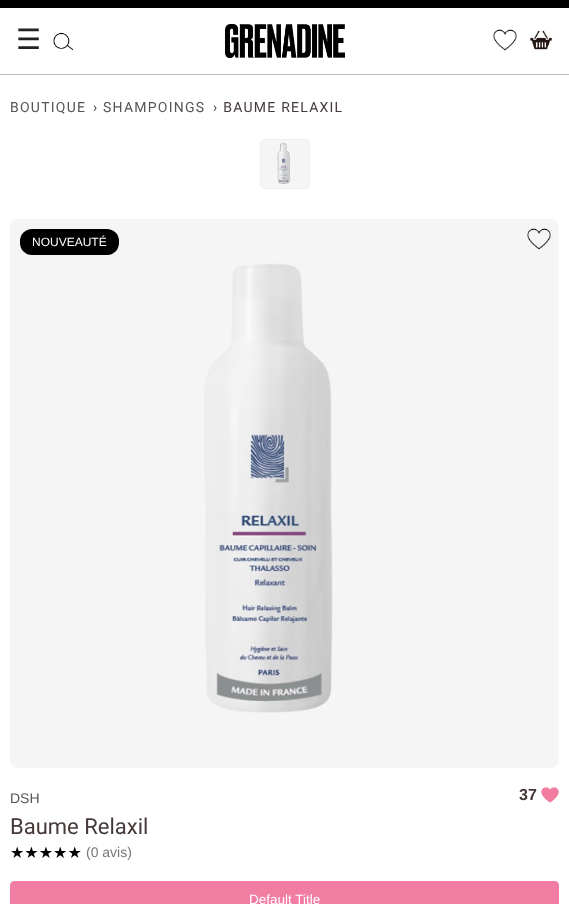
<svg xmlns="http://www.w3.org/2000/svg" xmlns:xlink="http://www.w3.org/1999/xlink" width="569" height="904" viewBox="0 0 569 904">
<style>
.cls-1{font:28px DejaVu Sans;fill:#222222}
.cls-2{font:14px Roboto;letter-spacing:1.25px;fill:#555555}
.cls-3{font:14px Roboto;letter-spacing:1.25px;fill:#453939}
.cls-4{font:12px Liberation Sans;fill:#ffffff}
.cls-5{font:bold 16px Liberation Sans;fill:#453939}
.cls-6{font:22px Roboto;fill:#453939}
.cls-7{font:14px Liberation Sans;fill:#555555}
.cls-8{font:16px DejaVu Sans;fill:#000000}
.cls-9{font:14px Liberation Sans;fill:#777777}
.cls-10{font:13.5px Liberation Sans;fill:#ffffff}
</style>
<rect width="100%" height="100%" fill="#ffffff"/>
<rect fill="#bababa" x="0" y="74" width="569" height="1"/>
<rect fill="#000000" x="0" y="0" width="569" height="8"/>
<image xlink:href="image0.png" x="53" y="32" width="20" height="19"/>
<image xlink:href="image1.png" x="225" y="24" width="120" height="34"/>
<image xlink:href="image2.png" x="493" y="29" width="24" height="22"/>
<image xlink:href="image3.png" x="529" y="30" width="24" height="20"/>
<rect fill="none" stroke="#eeeeee" x="260.5" y="139.5" width="49" height="49" rx="3.5"/>
<image xlink:href="image4.png" x="261" y="140" width="48" height="48"/>
<image xlink:href="image5.png" x="10" y="219" width="549" height="549"/>
<rect fill="#000000" x="20" y="229" width="99" height="26" rx="12"/>
<image xlink:href="image6.png" x="527" y="228" width="24" height="22"/>
<image xlink:href="image7.png" x="541" y="787" width="18" height="16"/>
<rect fill="#f27da2" stroke="#f27da2" x="10.5" y="881.5" width="548" height="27" rx="3.5"/>
<text class="cls-1" x="16" y="49">☰</text>
<text class="cls-2" x="10" y="112">BOUTIQUE</text>
<text class="cls-3" x="93" y="112">›</text>
<text class="cls-2" x="103" y="112">SHAMPOINGS</text>
<text class="cls-3" x="213" y="112">› BAUME RELAXIL</text>
<text class="cls-4" x="32" y="246">NOUVEAUTÉ</text>
<text class="cls-5" x="519" y="800">37</text>
<text class="cls-6" x="10" y="834">Baume Relaxil</text>
<text class="cls-7" x="10" y="803">DSH</text>
<text class="cls-8" x="10" y="858">★★★★★</text>
<text class="cls-9" x="86" y="857">(0 avis)</text>
<text class="cls-10" x="249" y="904">Default Title</text>
</svg>
